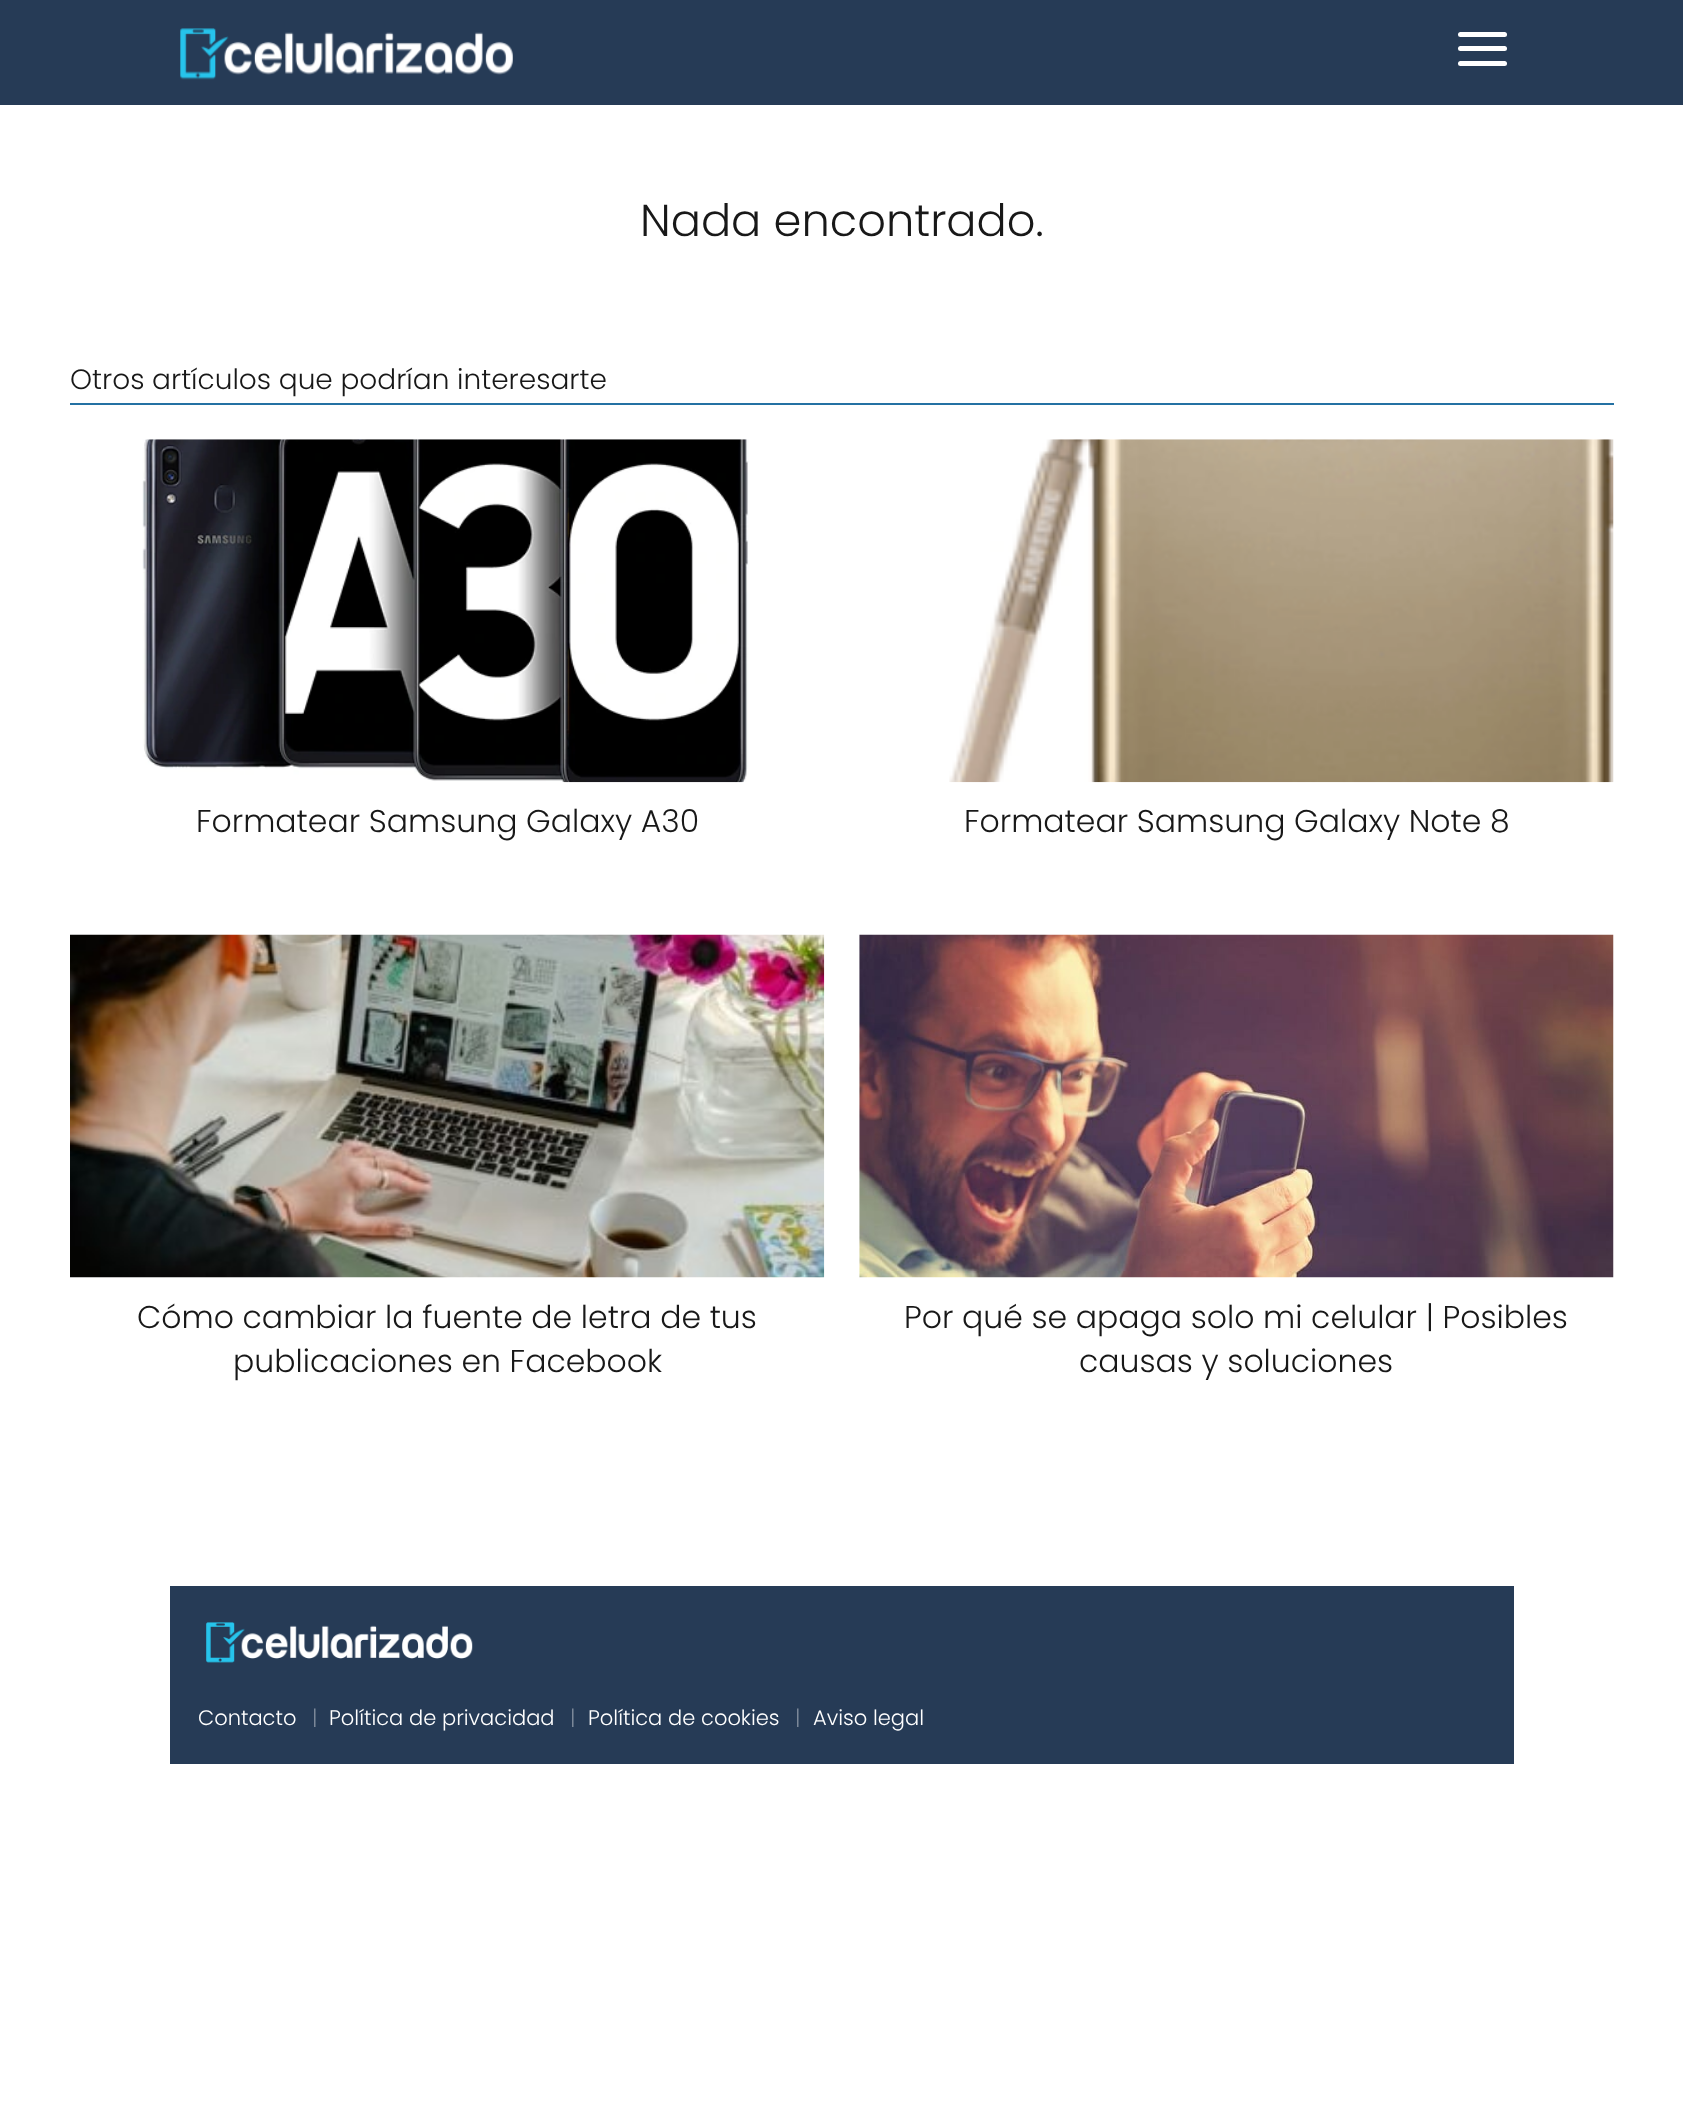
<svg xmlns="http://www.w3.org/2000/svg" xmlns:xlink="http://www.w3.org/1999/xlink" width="1683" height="2112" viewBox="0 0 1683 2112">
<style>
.cls-1{font:300 44.75px Poppins;fill:#181818}
.cls-2{font:300 28px Poppins;fill:#181818}
.cls-3{font:300 31.5px Poppins;fill:#181818}
.cls-4{font:300 21px Poppins;fill:#ffffff}
.cls-5{font:300 21px Poppins;fill:#7d899a}
</style>
<rect width="100%" height="100%" fill="#ffffff"/>
<rect fill="#263b56" x="0" y="0" width="1683" height="105"/>
<image xlink:href="image0.png" x="180" y="28" width="333" height="52"/>
<rect fill="#ffffff" x="1458" y="32" width="49" height="5" rx="2.5"/>
<rect fill="#ffffff" x="1458" y="46" width="49" height="5" rx="2.5"/>
<rect fill="#ffffff" x="1458" y="61" width="49" height="5" rx="2.5"/>
<rect fill="#2471a3" x="70" y="403" width="1544" height="2"/>
<image xlink:href="image1.png" x="142" y="439" width="607" height="344"/>
<image xlink:href="image2.png" x="949" y="439" width="665" height="344"/>
<image xlink:href="image3.png" x="70" y="934" width="755" height="344"/>
<image xlink:href="image4.png" x="859" y="934" width="755" height="344"/>
<rect fill="#263b56" x="170" y="1586" width="1344" height="178"/>
<image xlink:href="image5.png" x="206" y="1622" width="267" height="41"/>
<text class="cls-1" x="640" y="236">Nada encontrado.</text>
<text class="cls-2" x="70" y="389">Otros artículos que podrían interesarte</text>
<text class="cls-3" x="196" y="832">Formatear Samsung Galaxy A30</text>
<text class="cls-3" x="964" y="832">Formatear Samsung Galaxy Note 8</text>
<text class="cls-3" x="137" y="1328">Cómo cambiar la fuente de letra de tus</text>
<text class="cls-3" x="233" y="1372">publicaciones en Facebook</text>
<text class="cls-3" x="904" y="1328">Por qué se apaga solo mi celular | Posibles</text>
<text class="cls-3" x="1079" y="1372">causas y soluciones</text>
<text class="cls-4" x="198" y="1725">Contacto</text>
<text class="cls-5" x="312" y="1725">|</text>
<text class="cls-4" x="329" y="1725">Política de privacidad</text>
<text class="cls-5" x="570" y="1725">|</text>
<text class="cls-4" x="588" y="1725">Política de cookies</text>
<text class="cls-5" x="795" y="1725">|</text>
<text class="cls-4" x="813" y="1725">Aviso legal</text>
</svg>
